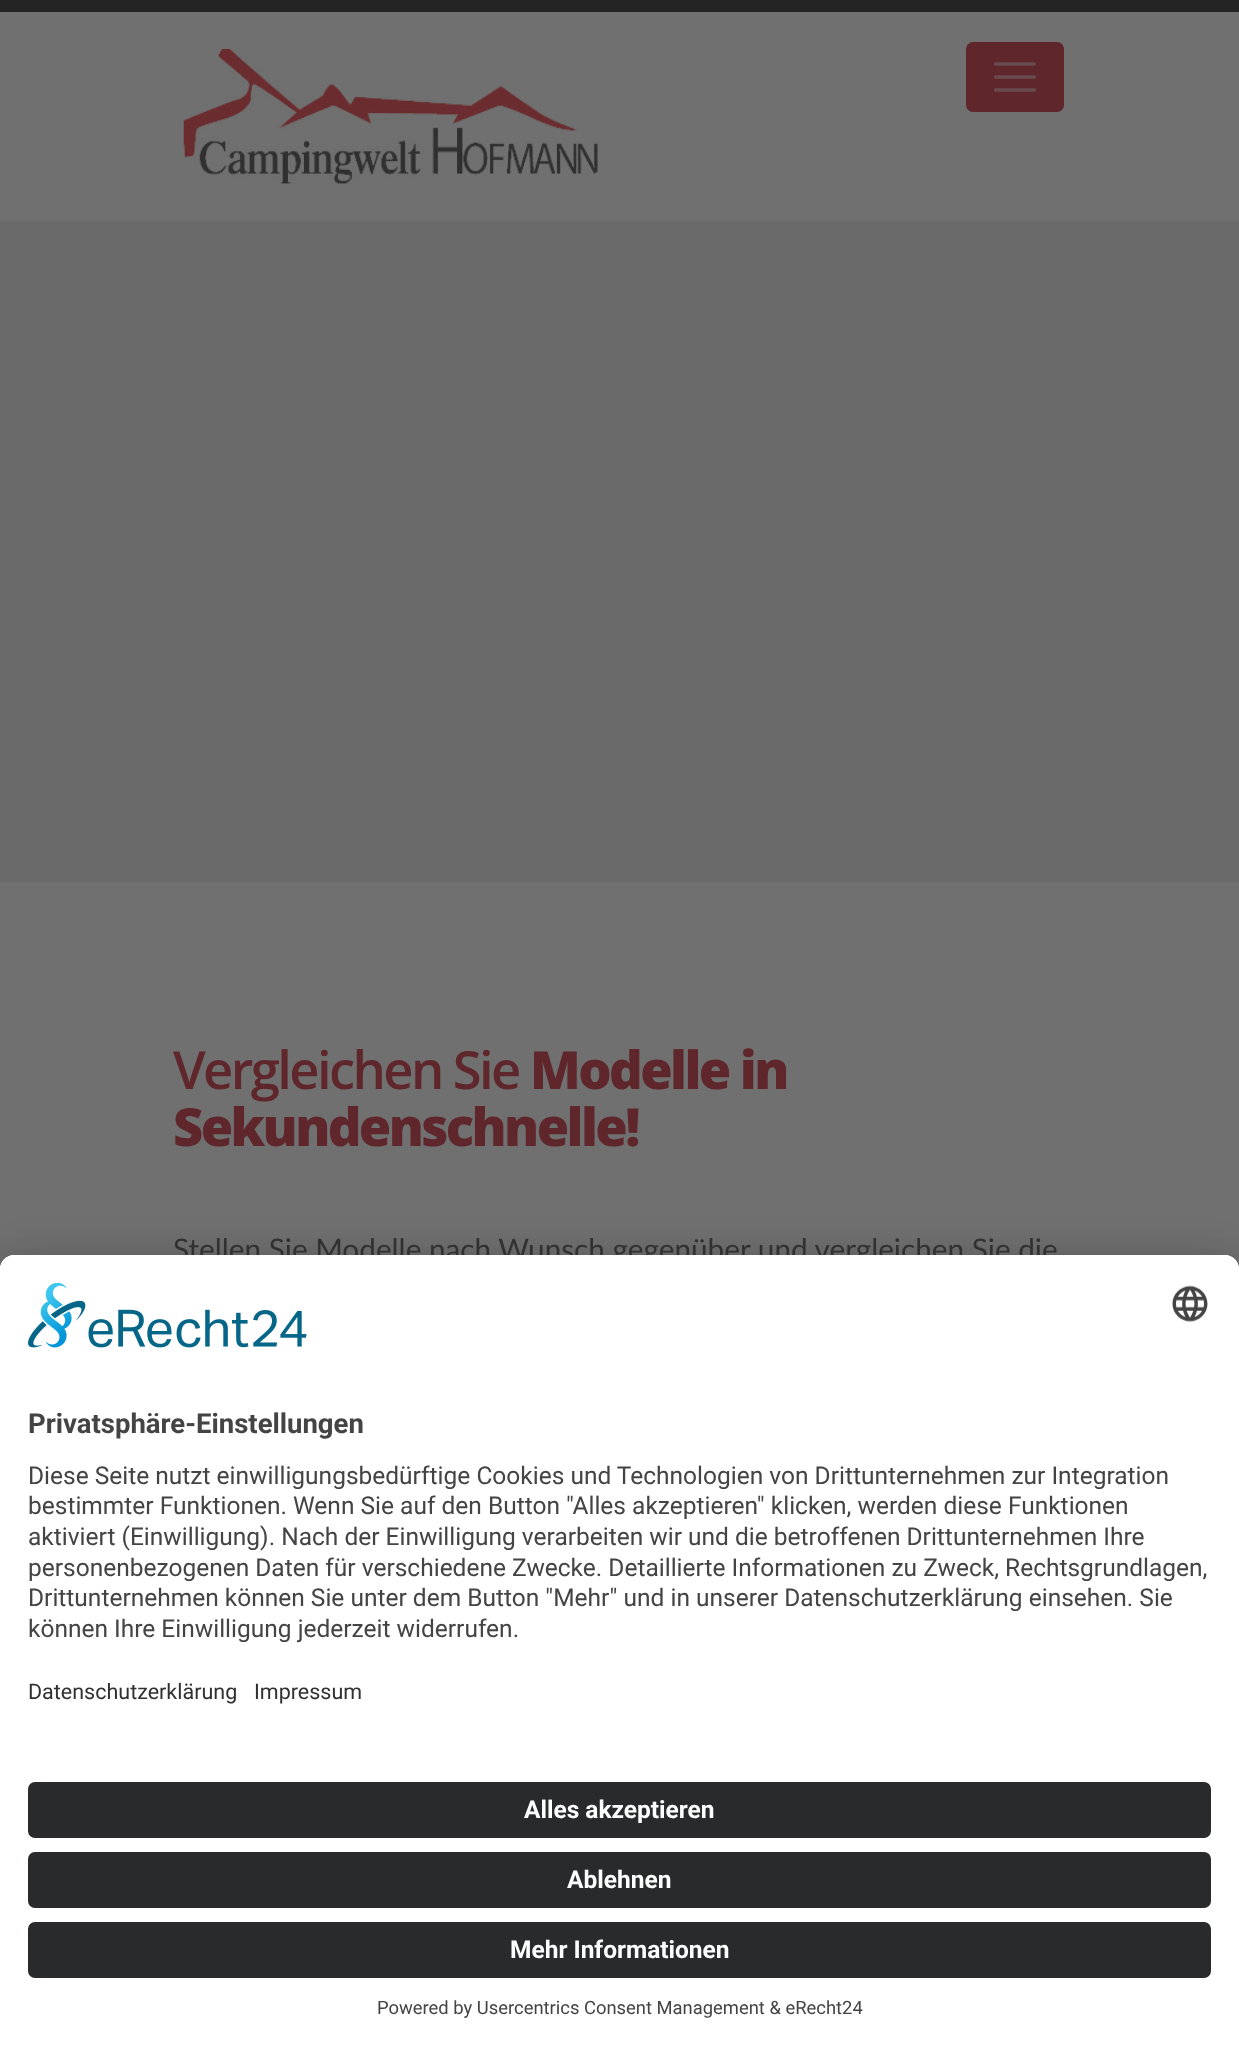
<svg xmlns="http://www.w3.org/2000/svg" xmlns:xlink="http://www.w3.org/1999/xlink" width="1239" height="2046" viewBox="0 0 1239 2046">
<style>
.cls-1{font:600 52.5px Open Sans;letter-spacing:-2.6px;fill:#5f262c}
.cls-2{font:800 52.5px Open Sans;letter-spacing:-2.6px;fill:#5f262c}
.cls-3{font:29.75px Lato;fill:#313131}
.cls-4{font:bold 27.5px Roboto;fill:#444444}
.cls-5{font:24.5px Roboto;fill:#444444}
.cls-6{font:21.5px Roboto;fill:#313131}
.cls-7{font:bold 24.5px Roboto;fill:#ffffff}
.cls-8{font:18.4px Roboto;fill:#444444}
</style>
<rect width="100%" height="100%" fill="#707070"/>
<rect fill="#242424" x="0" y="0" width="1239" height="12"/>
<image xlink:href="image0.png" x="183" y="49" width="416" height="135"/>
<rect fill="#5f262c" x="966" y="42" width="98" height="70" rx="7"/>
<path fill="none" stroke="#684b4e" stroke-width="3.3" stroke-linecap="round" d="M995.5 64H1034.5M995.5 77H1034.5M995.5 90H1034.5"/>
<rect fill="#6a6a6a" x="0" y="221" width="1239" height="661"/>
<rect fill="#000000" fill-opacity="0.3" filter="blur(24.5px)" x="0" y="1290" width="1239" height="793" rx="14"/>
<rect fill="#000000" fill-opacity="0.22" filter="blur(23px)" x="0" y="1264" width="1239" height="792" rx="14"/>
<text class="cls-1" x="173" y="1089">Vergleichen Sie</text>
<text class="cls-2" x="530" y="1089">Modelle in</text>
<text class="cls-2" x="173" y="1146">Sekundenschnelle!</text>
<text class="cls-3" x="173" y="1260">Stellen Sie Modelle nach Wunsch gegenüber und vergleichen Sie die</text>
<path fill="#ffffff" d="M14 1255H1225C1232.5 1255 1239 1261.5 1239 1269V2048H0V1269C0 1261.5 6.5 1255 14 1255Z"/>
<path fill="#ffffff" d="M14 1255H1225C1232.5 1255 1239 1261.5 1239 1269V1761H0V1269C0 1261.5 6.5 1255 14 1255Z"/>
<image xlink:href="image1.png" x="28" y="1283" width="279" height="65"/>
<image xlink:href="image2.png" x="1172" y="1285" width="36" height="37"/>
<text class="cls-4" x="28" y="1433">Privatsphäre-Einstellungen</text>
<text class="cls-5"><tspan x="28" y="1484">Diese Seite nutzt einwilligungsbedürftige Cookies und Technologien von Drittunternehmen zur Integration</tspan><tspan x="28" y="1514">bestimmter Funktionen. Wenn Sie auf den Button "Alles akzeptieren" klicken, werden diese Funktionen</tspan><tspan x="28" y="1545">aktiviert (Einwilligung). Nach der Einwilligung verarbeiten wir und die betroffenen Drittunternehmen Ihre</tspan><tspan x="28" y="1576">personenbezogenen Daten für verschiedene Zwecke. Detaillierte Informationen zu Zweck, Rechtsgrundlagen,</tspan><tspan x="28" y="1606">Drittunternehmen können Sie unter dem Button "Mehr" und in unserer Datenschutzerklärung einsehen. Sie</tspan><tspan x="28" y="1637">können Ihre Einwilligung jederzeit widerrufen.</tspan></text>
<text class="cls-6" x="28" y="1699">Datenschutzerklärung</text>
<text class="cls-6" x="254" y="1699">Impressum</text>
<rect fill="#292a2b" x="28" y="1782" width="1183" height="56" rx="7"/>
<text class="cls-7" x="524" y="1818">Alles akzeptieren</text>
<rect fill="#292a2b" x="28" y="1852" width="1183" height="56" rx="7"/>
<text class="cls-7" x="567" y="1888">Ablehnen</text>
<rect fill="#292a2b" x="28" y="1922" width="1183" height="56" rx="7"/>
<text class="cls-7" x="510" y="1958">Mehr Informationen</text>
<text class="cls-8" x="377" y="2014">Powered by Usercentrics Consent Management &amp; eRecht24</text>
</svg>
